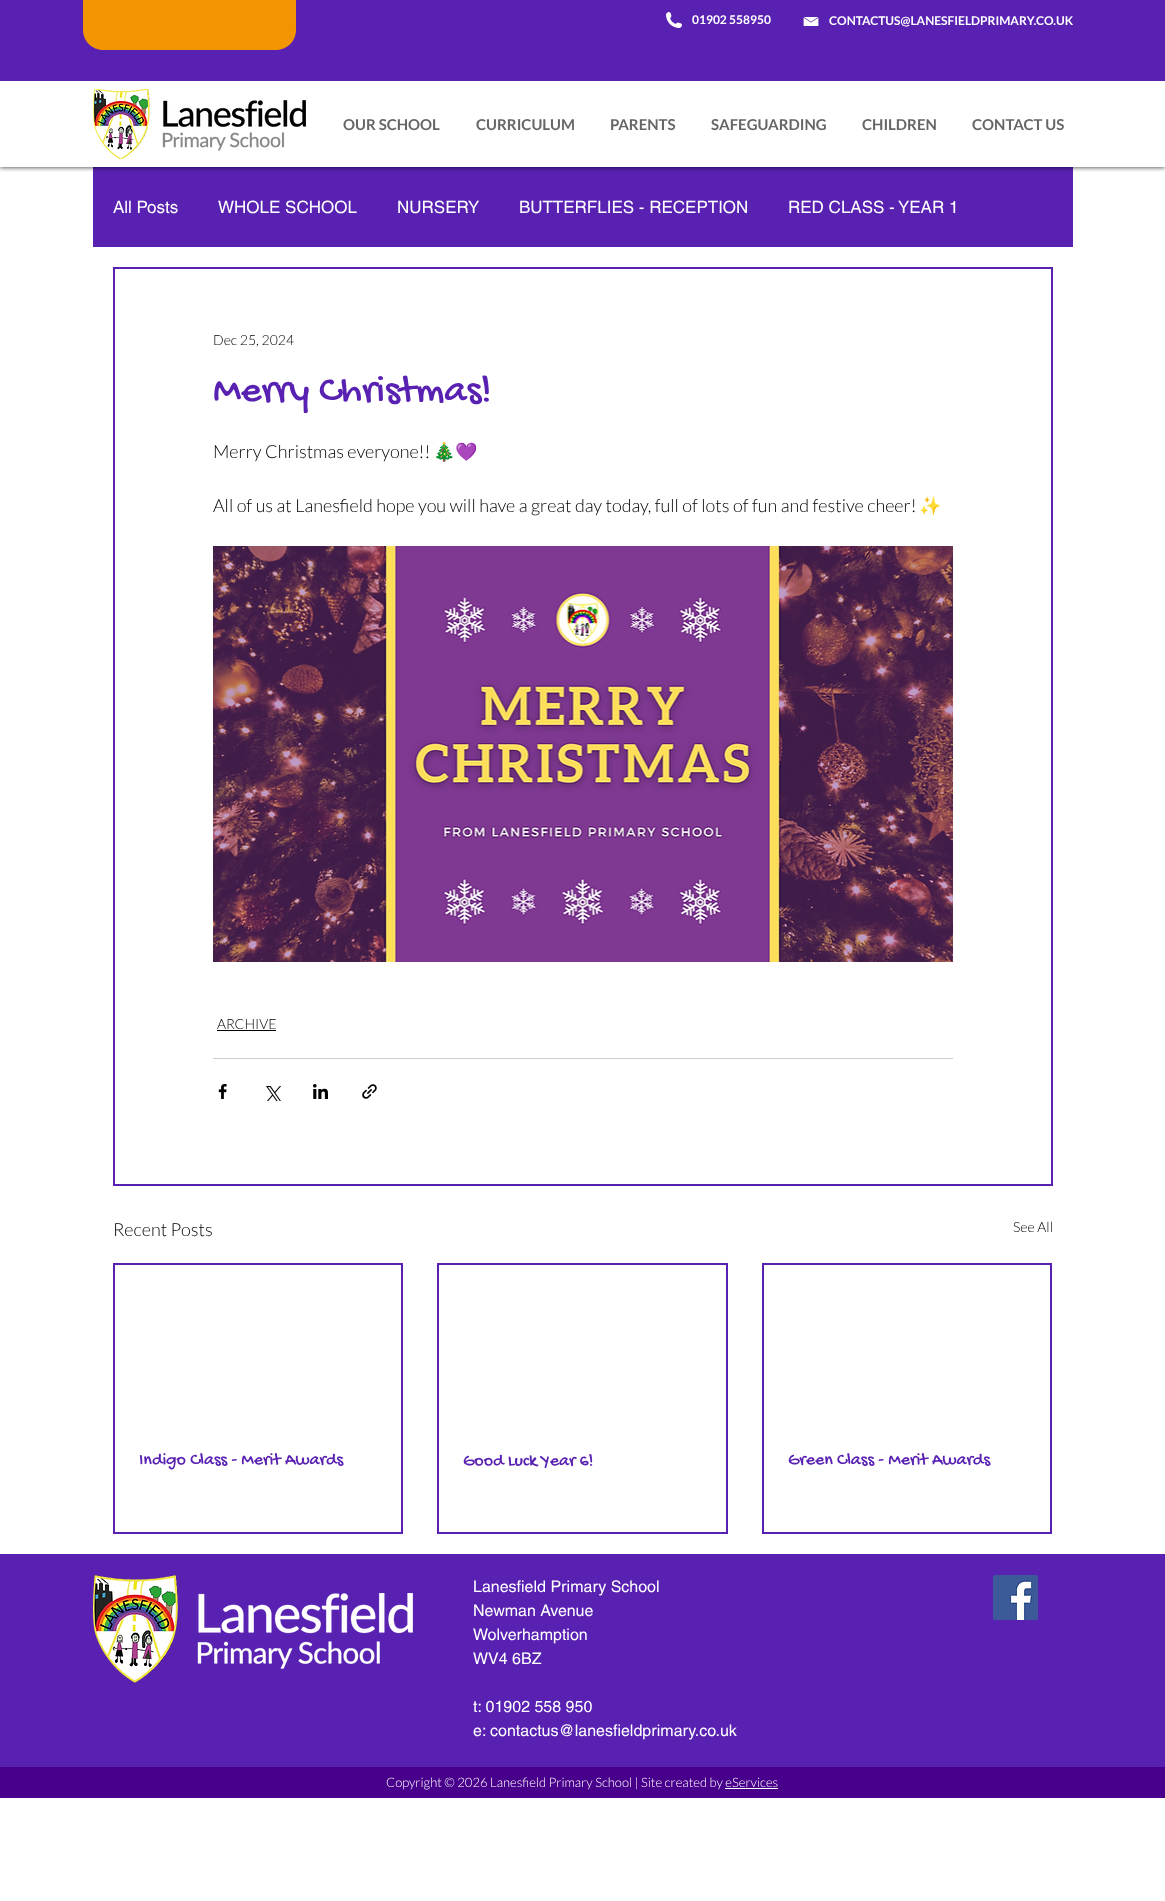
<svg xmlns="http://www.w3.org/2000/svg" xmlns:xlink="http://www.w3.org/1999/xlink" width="1165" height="1901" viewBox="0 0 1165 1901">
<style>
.cls-1{font:bold 12px Lato;fill:#ffffff}
.cls-2{font:bold 15px Lato;fill:#666666}
.cls-3{font:17px helvetica;fill:#ffffff}
.cls-4{font:300 14px Lato;fill:#000000}
.cls-5{font:40px Gochi Hand;fill:#5921b2}
.cls-6{font:300 18px Lato;fill:#000000}
.cls-7{font:18px Noto Color Emoji;fill:#000000}
.cls-8{font:18px Gochi Hand;fill:#5921b2}
.cls-9{font:16px helvetica;fill:#ffffff}
.cls-10{font:300 13px Lato;fill:#ffffff}
</style>
<defs>
<clipPath id="clip1"><rect x="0" y="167" width="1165" height="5"/></clipPath>
</defs>
<rect width="100%" height="100%" fill="#ffffff"/>
<rect fill="#5921b2" x="93" y="167" width="980" height="80"/>
<g clip-path="url(#clip1)">
<rect fill="#000000" fill-opacity="0.6" filter="blur(2px)" x="0" y="1" width="1165" height="167"/>
</g>
<rect fill="#5921b2" x="0" y="0" width="1165" height="81"/>
<path fill="#f29500" d="M83 0H296V30C296 41 287 50 276 50H103C92 50 83 41 83 30Z"/>
<image xlink:href="image0.png" x="666" y="12" width="16" height="16"/>
<image xlink:href="image1.png" x="803" y="17" width="16" height="9"/>
<image xlink:href="image2.png" x="93" y="89" width="213" height="70"/>
<rect fill="none" stroke="#5921b2" stroke-width="2" x="114" y="268" width="938" height="917"/>
<image xlink:href="image3.png" x="213" y="546" width="740" height="416"/>
<rect fill="#000000" x="217" y="1030" width="59" height="1"/>
<rect fill="#cccccc" x="213" y="1058" width="740" height="1"/>
<image xlink:href="image4.png" x="218" y="1084" width="9" height="15"/>
<image xlink:href="image5.png" x="266" y="1086" width="15" height="15"/>
<image xlink:href="image6.png" x="313" y="1084" width="15" height="15"/>
<image xlink:href="image7.png" x="362" y="1084" width="15" height="15"/>
<rect fill="none" stroke="#5921b2" stroke-width="2" x="114" y="1264" width="288" height="269"/>
<rect fill="none" stroke="#5921b2" stroke-width="2" x="438" y="1264" width="289" height="269"/>
<rect fill="none" stroke="#5921b2" stroke-width="2" x="763" y="1264" width="288" height="269"/>
<rect fill="#5921b2" x="0" y="1554" width="1165" height="213"/>
<image xlink:href="image8.png" x="93" y="1575" width="320" height="108"/>
<image xlink:href="image9.png" x="993" y="1575" width="45" height="45"/>
<rect fill="#48008c" x="0" y="1767" width="1165" height="31"/>
<rect fill="#ffffff" x="725" y="1788" width="53" height="1"/>
<text class="cls-1" x="692" y="24">01902 558950</text>
<text class="cls-1" x="829" y="25">CONTACTUS@LANESFIELDPRIMARY.CO.UK</text>
<text class="cls-2" x="343" y="130">OUR SCHOOL</text>
<text class="cls-2" x="476" y="130">CURRICULUM</text>
<text class="cls-2" x="610" y="130">PARENTS</text>
<text class="cls-2" x="711" y="130">SAFEGUARDING</text>
<text class="cls-2" x="862" y="130">CHILDREN</text>
<text class="cls-2" x="972" y="130">CONTACT US</text>
<text class="cls-3" x="113" y="213">All Posts</text>
<text class="cls-3" x="218" y="213">WHOLE SCHOOL</text>
<text class="cls-3" x="397" y="213">NURSERY</text>
<text class="cls-3" x="519" y="213">BUTTERFLIES - RECEPTION</text>
<text class="cls-3" x="788" y="213">RED CLASS - YEAR 1</text>
<text class="cls-4" x="213" y="345">Dec 25, 2024</text>
<text class="cls-5" x="213" y="400">Merry Christmas!</text>
<text class="cls-6" x="213" y="458">Merry Christmas everyone!!</text>
<text class="cls-7" x="433" y="458">🎄💜</text>
<text class="cls-6" x="213" y="512">All of us at Lanesfield hope you will have a great day today, full of lots of fun and festive cheer!</text>
<text class="cls-7" x="919" y="512">✨</text>
<text class="cls-4" x="217" y="1029">ARCHIVE</text>
<text class="cls-6" x="113" y="1236">Recent Posts</text>
<text class="cls-4" x="1013" y="1232">See All</text>
<text class="cls-8" x="139" y="1464">Indigo Class - Merit Awards</text>
<text class="cls-8" x="463" y="1465">Good Luck Year 6!</text>
<text class="cls-8" x="788" y="1464">Green Class - Merit Awards</text>
<text class="cls-9"><tspan x="473" y="1592">Lanesfield Primary School</tspan><tspan x="473" y="1616">Newman Avenue</tspan><tspan x="473" y="1640">Wolverhamption</tspan><tspan x="473" y="1664">WV4 6BZ</tspan></text>
<text class="cls-9"><tspan x="473" y="1712">t: 01902 558 950</tspan><tspan x="473" y="1736">e: contactus@lanesfieldprimary.co.uk</tspan></text>
<text class="cls-10" x="386" y="1787">Copyright © 2026 Lanesfield Primary School | Site created by eServices</text>
</svg>
